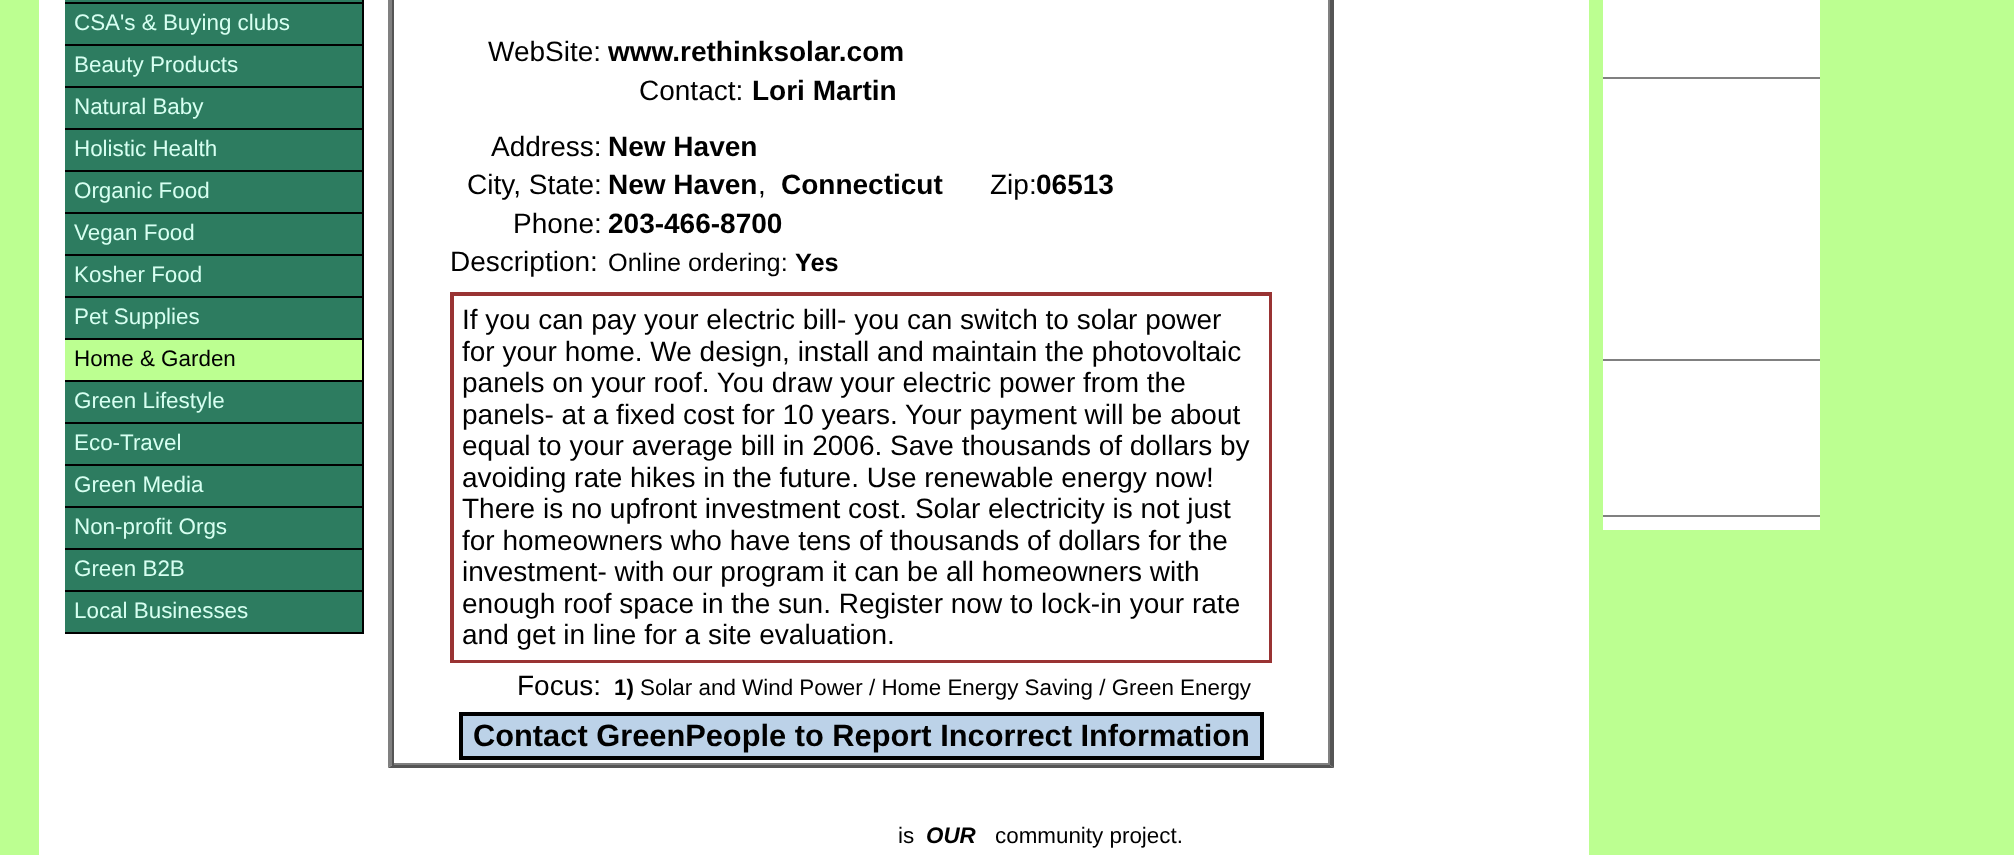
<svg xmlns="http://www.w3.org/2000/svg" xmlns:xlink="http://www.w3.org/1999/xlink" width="2014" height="855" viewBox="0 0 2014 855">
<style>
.cls-1{font:22.4px Liberation Sans;fill:#d7fff1}
.cls-2{font:22.4px Liberation Sans;fill:#000000}
.cls-3{font:28px Liberation Sans;fill:#000000}
.cls-4{font:bold 28px Liberation Sans;fill:#000000}
.cls-5{font:25.25px Liberation Sans;fill:#000000}
.cls-6{font:bold 25.25px Liberation Sans;fill:#000000}
.cls-7{font:bold 22.4px Liberation Sans;fill:#000000}
.cls-8{font:bold 30.8px Liberation Sans;fill:#000000}
.cls-9{font:italic bold 22.4px Liberation Sans;fill:#000000}
</style>
<rect width="100%" height="100%" fill="#bcff91"/>
<rect fill="#ffffff" x="39" y="0" width="1550" height="855"/>
<rect fill="#2d7c60" x="65" y="0" width="297" height="2"/>
<rect fill="#000000" x="362" y="0" width="2" height="634"/>
<rect fill="#000000" x="65" y="2" width="299" height="2"/>
<rect fill="#2d7c60" x="65" y="4" width="297" height="40"/>
<rect fill="#000000" x="65" y="44" width="299" height="2"/>
<rect fill="#2d7c60" x="65" y="46" width="297" height="40"/>
<rect fill="#000000" x="65" y="86" width="299" height="2"/>
<rect fill="#2d7c60" x="65" y="88" width="297" height="40"/>
<rect fill="#000000" x="65" y="128" width="299" height="2"/>
<rect fill="#2d7c60" x="65" y="130" width="297" height="40"/>
<rect fill="#000000" x="65" y="170" width="299" height="2"/>
<rect fill="#2d7c60" x="65" y="172" width="297" height="40"/>
<rect fill="#000000" x="65" y="212" width="299" height="2"/>
<rect fill="#2d7c60" x="65" y="214" width="297" height="40"/>
<rect fill="#000000" x="65" y="254" width="299" height="2"/>
<rect fill="#2d7c60" x="65" y="256" width="297" height="40"/>
<rect fill="#000000" x="65" y="296" width="299" height="2"/>
<rect fill="#2d7c60" x="65" y="298" width="297" height="40"/>
<rect fill="#000000" x="65" y="338" width="299" height="2"/>
<rect fill="#bcff91" x="65" y="340" width="297" height="40"/>
<rect fill="#000000" x="65" y="380" width="299" height="2"/>
<rect fill="#2d7c60" x="65" y="382" width="297" height="40"/>
<rect fill="#000000" x="65" y="422" width="299" height="2"/>
<rect fill="#2d7c60" x="65" y="424" width="297" height="40"/>
<rect fill="#000000" x="65" y="464" width="299" height="2"/>
<rect fill="#2d7c60" x="65" y="466" width="297" height="40"/>
<rect fill="#000000" x="65" y="506" width="299" height="2"/>
<rect fill="#2d7c60" x="65" y="508" width="297" height="40"/>
<rect fill="#000000" x="65" y="548" width="299" height="2"/>
<rect fill="#2d7c60" x="65" y="550" width="297" height="40"/>
<rect fill="#000000" x="65" y="590" width="299" height="2"/>
<rect fill="#2d7c60" x="65" y="592" width="297" height="40"/>
<rect fill="#000000" x="65" y="632" width="299" height="2"/>
<path fill="#555555" d="M1334-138V768L1330 765V-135Z"/>
<path fill="#555555" d="M1334 768H388L392 765H1330Z"/>
<path fill="#808080" d="M388 768V-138L392-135V765Z"/>
<rect fill="#808080" x="1328" y="0" width="2" height="765"/>
<rect fill="#808080" x="392" y="763" width="938" height="2"/>
<rect fill="#555555" x="392" y="0" width="2" height="765"/>
<rect fill="none" stroke="#993333" stroke-width="2" x="451" y="293" width="820" height="369"/>
<rect fill="none" stroke="#993333" stroke-width="2" x="453" y="295" width="817" height="366"/>
<rect fill="#bcd2e8" stroke="#000000" stroke-width="4" x="461" y="714" width="801" height="44"/>
<rect fill="#ffffff" x="1603" y="0" width="217" height="530"/>
<rect fill="#808080" x="1603" y="77" width="217" height="2"/>
<rect fill="#808080" x="1603" y="359" width="217" height="2"/>
<rect fill="#808080" x="1603" y="515" width="217" height="2"/>
<text class="cls-1"><tspan x="74" y="30">CSA's &amp; Buying clubs</tspan><tspan x="74" y="72">Beauty Products</tspan><tspan x="74" y="114">Natural Baby</tspan><tspan x="74" y="156">Holistic Health</tspan><tspan x="74" y="198">Organic Food</tspan><tspan x="74" y="240">Vegan Food</tspan><tspan x="74" y="282">Kosher Food</tspan><tspan x="74" y="324">Pet Supplies</tspan></text>
<text class="cls-2" x="74" y="366">Home &amp; Garden</text>
<text class="cls-1"><tspan x="74" y="408">Green Lifestyle</tspan><tspan x="74" y="450">Eco-Travel</tspan><tspan x="74" y="492">Green Media</tspan><tspan x="74" y="534">Non-profit Orgs</tspan><tspan x="74" y="576">Green B2B</tspan><tspan x="74" y="618">Local Businesses</tspan></text>
<text class="cls-3" x="488" y="61">WebSite:</text>
<text class="cls-4" x="608" y="61">www.rethinksolar.com</text>
<text class="cls-3" x="639" y="100">Contact:</text>
<text class="cls-4" x="752" y="100">Lori Martin</text>
<text class="cls-3" x="491" y="156">Address:</text>
<text class="cls-4" x="608" y="156">New Haven</text>
<text class="cls-3" x="467" y="194">City, State:</text>
<text class="cls-4" x="608" y="194">New Haven</text>
<text class="cls-3" x="758" y="194">,</text>
<text class="cls-4" x="781" y="194">Connecticut</text>
<text class="cls-3" x="990" y="194">Zip:</text>
<text class="cls-4" x="1036" y="194">06513</text>
<text class="cls-3" x="513" y="233">Phone:</text>
<text class="cls-4" x="608" y="233">203-466-8700</text>
<text class="cls-3" x="450" y="271">Description:</text>
<text class="cls-5" x="608" y="271">Online ordering:</text>
<text class="cls-6" x="795" y="271">Yes</text>
<text class="cls-3"><tspan x="462" y="329">If you can pay your electric bill- you can switch to solar power</tspan><tspan x="462" y="361">for your home. We design, install and maintain the photovoltaic</tspan><tspan x="462" y="392">panels on your roof. You draw your electric power from the</tspan><tspan x="462" y="424">panels- at a fixed cost for 10 years. Your payment will be about</tspan><tspan x="462" y="455">equal to your average bill in 2006. Save thousands of dollars by</tspan><tspan x="462" y="487">avoiding rate hikes in the future. Use renewable energy now!</tspan><tspan x="462" y="518">There is no upfront investment cost. Solar electricity is not just</tspan><tspan x="462" y="550">for homeowners who have tens of thousands of dollars for the</tspan><tspan x="462" y="581">investment- with our program it can be all homeowners with</tspan><tspan x="462" y="613">enough roof space in the sun. Register now to lock-in your rate</tspan><tspan x="462" y="644">and get in line for a site evaluation.</tspan></text>
<text class="cls-3" x="517" y="695">Focus:</text>
<text class="cls-7" x="614" y="695">1)</text>
<text class="cls-2" x="640" y="695">Solar and Wind Power / Home Energy Saving / Green Energy</text>
<text class="cls-8" x="473" y="746">Contact GreenPeople to Report Incorrect Information</text>
<text class="cls-2" x="898" y="843">is</text>
<text class="cls-9" x="926" y="843">OUR</text>
<text class="cls-2" x="995" y="843">community project.</text>
</svg>
